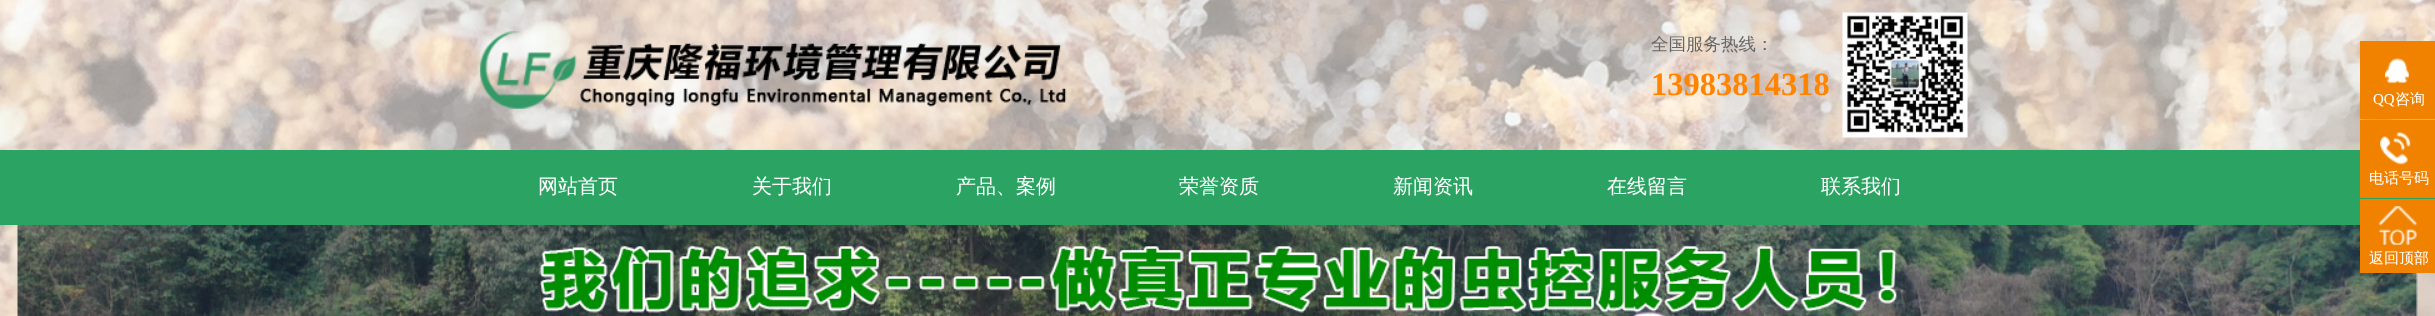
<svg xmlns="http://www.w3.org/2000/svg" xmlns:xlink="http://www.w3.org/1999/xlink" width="2435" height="316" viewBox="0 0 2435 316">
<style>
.cls-1{font:500 17.5px WenQuanYi Zen Hei;fill:#666666}
.cls-2{font:bold 32.5px Liberation Serif;fill:#ff8401}
.cls-3{font:500 20px WenQuanYi Zen Hei;fill:#ffffff}
.cls-4{font:15px Liberation Serif;fill:#ffffff}
.cls-5{font:500 15px WenQuanYi Zen Hei;fill:#ffffff}
</style>
<rect width="100%" height="100%" fill="#ffffff"/>
<image xlink:href="image0.png" x="0" y="225" width="2435" height="91"/>
<image xlink:href="image1.png" x="0" y="0" width="2435" height="150"/>
<image xlink:href="image2.png" x="479" y="31" width="588" height="78"/>
<image xlink:href="image3.png" x="1842" y="12" width="126" height="126"/>
<rect fill="#2ba363" x="0" y="150" width="2435" height="75"/>
<rect fill="#f08200" x="2360" y="41" width="75" height="78"/>
<image xlink:href="image4.png" x="2385" y="58" width="24" height="26"/>
<rect fill="#f08200" x="2360" y="120" width="75" height="78"/>
<image xlink:href="image5.png" x="2380" y="131" width="31" height="34"/>
<image xlink:href="image7.png" x="17" y="225" width="2401" height="91"/>
<rect fill="#f08200" x="2360" y="199" width="75" height="74"/>
<image xlink:href="image6.png" x="2378" y="206" width="39" height="39"/>
<text class="cls-1" x="1651" y="50">全国服务热线：</text>
<text class="cls-2" x="1651" y="95">13983814318</text>
<text class="cls-3" x="538" y="193">网站首页</text>
<text class="cls-3" x="752" y="193">关于我们</text>
<text class="cls-3" x="956" y="193">产品、案例</text>
<text class="cls-3" x="1179" y="193">荣誉资质</text>
<text class="cls-3" x="1393" y="193">新闻资讯</text>
<text class="cls-3" x="1607" y="193">在线留言</text>
<text class="cls-3" x="1821" y="193">联系我们</text>
<text class="cls-4" x="2373" y="104">QQ</text>
<text class="cls-5" x="2395" y="104">咨询</text>
<text class="cls-5" x="2369" y="183">电话号码</text>
<text class="cls-5" x="2369" y="263">返回顶部</text>
</svg>
